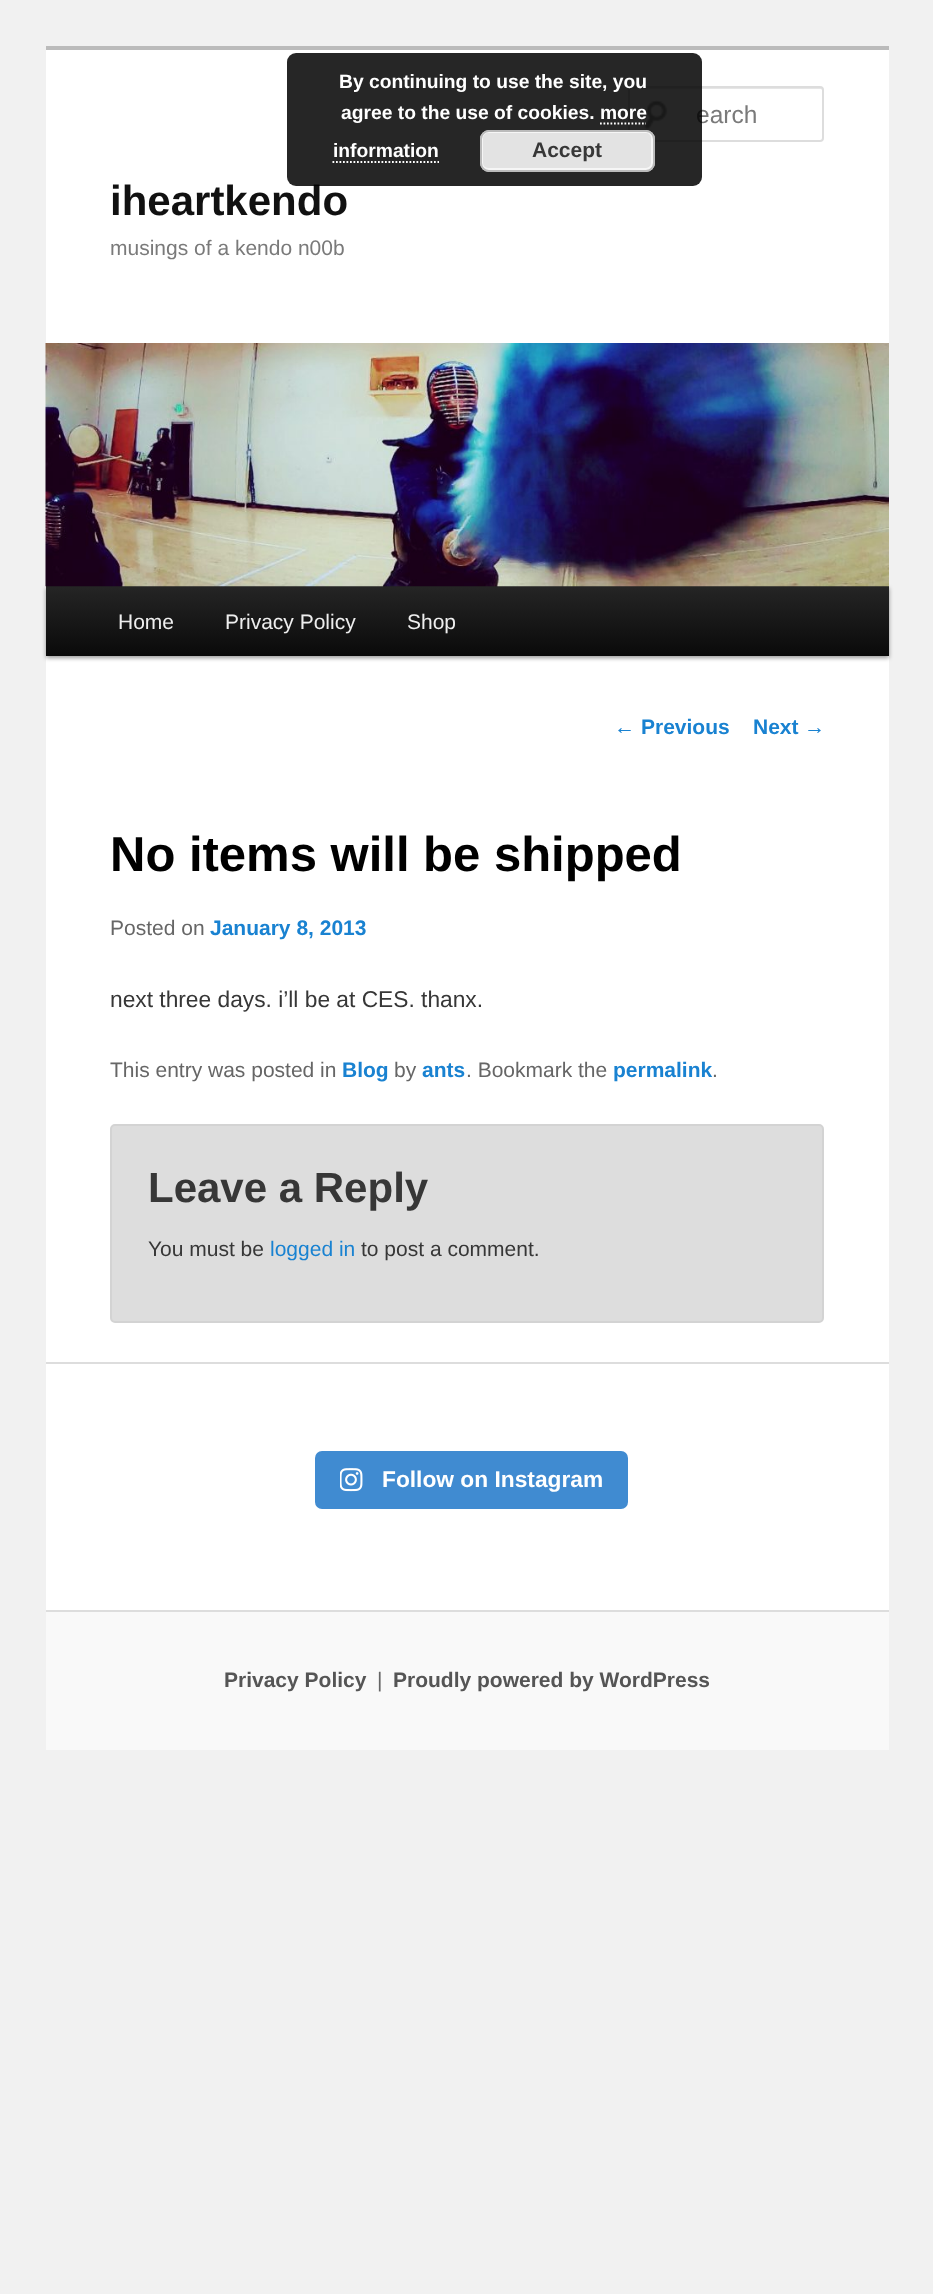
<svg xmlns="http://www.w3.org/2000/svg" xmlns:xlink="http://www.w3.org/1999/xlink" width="933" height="2294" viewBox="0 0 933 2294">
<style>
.cls-1{font:24.5px Liberation Sans;fill:#7a7a7a}
.cls-2{font:bold 42px Liberation Sans;fill:#111111}
.cls-3{font:bold 21px Liberation Sans;fill:#373737}
.cls-4{font:bold 19.25px Liberation Sans;fill:#ffffff}
.cls-5{font:21px Liberation Sans;fill:#7a7a7a}
.cls-6{font:21px Liberation Sans;fill:#eeeeee}
.cls-7{font:21px Liberation Sans;fill:#1982d1}
.cls-8{font:bold 21px Liberation Sans;fill:#1982d1}
.cls-9{font:bold 49px Liberation Sans;fill:#000000}
.cls-10{font:21px Liberation Sans;fill:#666666}
.cls-11{font:22.75px Liberation Sans;fill:#373737}
.cls-12{font:bold 42px Liberation Sans;fill:#373737}
.cls-13{font:21px Liberation Sans;fill:#373737}
.cls-14{font:bold 22.75px Liberation Sans;fill:#ffffff}
.cls-15{font:bold 21px Liberation Sans;fill:#555555}
</style>
<defs>
<linearGradient id="g1" gradientUnits="userSpaceOnUse" x1="467" y1="586" x2="467" y2="656"><stop offset="0" stop-color="#252525"/><stop offset="1" stop-color="#0a0a0a"/></linearGradient>
</defs>
<rect width="100%" height="100%" fill="#f1f1f1"/>
<rect fill="#ffffff" x="46" y="50" width="843" height="1560"/>
<rect fill="#bbbbbb" x="46" y="46" width="843" height="4"/>
<image xlink:href="image0.png" x="643" y="100" width="25" height="30"/>
<path fill="#e6e6e6" d="M632 89H821C822 89 822 90 822 91V140C823 139 823 139 823 138V90C823 89 822 88 821 88H632C631 88 630 89 630 90V91C630 90 631 89 632 89Z"/>
<rect fill="none" stroke="#dddddd" stroke-width="2" x="629" y="87" width="194" height="54" rx="3"/>
<rect fill="#000000" fill-opacity="0.4" filter="blur(2px)" x="46" y="588" width="843" height="70"/>
<rect fill="url(#g1)" x="46" y="586" width="843" height="70"/>
<image xlink:href="image1.png" x="45" y="343" width="844" height="244"/>
<rect fill="#dddddd" stroke="#d3d3d3" stroke-width="2" x="111" y="1125" width="712" height="197" rx="4"/>
<rect fill="#dddddd" x="46" y="1362" width="843" height="2"/>
<rect fill="#408bd1" x="315" y="1451" width="313" height="58" rx="7"/>
<image xlink:href="image2.png" x="340" y="1468" width="23" height="24"/>
<rect fill="#f9f9f9" x="46" y="1612" width="843" height="138"/>
<rect fill="#dddddd" x="46" y="1610" width="843" height="2"/>
<text class="cls-1" x="696" y="123">earch</text>
<text class="cls-2" x="110" y="215">iheartkendo</text>
<rect fill="#000000" fill-opacity="0.85" x="287" y="53" width="415" height="133" rx="9"/>
<rect fill="#e3e3e3" x="480" y="130" width="175" height="42" rx="9"/>
<rect fill="none" stroke="#f6f6f6" stroke-width="2" x="482" y="132" width="170" height="37" rx="6"/>
<rect fill="none" stroke="#bbbbbb" stroke-width="2" x="481" y="131" width="173" height="40" rx="8"/>
<text class="cls-3" x="532" y="157">Accept</text>
<text class="cls-4" x="333" y="157">information</text>
<path fill="none" stroke="#ffffff" stroke-width="1.8" stroke-dasharray="1.75 1.75" d="M332.5 162H439"/>
<path fill="none" stroke="#ffffff" stroke-width="1.8" stroke-dasharray="1.75 1.75" d="M600 123.5H646"/>
<text class="cls-4" x="341" y="119">agree to the use of cookies. more</text>
<text class="cls-4" x="339" y="88">By continuing to use the site, you</text>
<text class="cls-5" x="110" y="255">musings of a kendo n00b</text>
<text class="cls-6" x="118" y="629">Home</text>
<text class="cls-6" x="225" y="629">Privacy Policy</text>
<text class="cls-6" x="407" y="629">Shop</text>
<text class="cls-7" x="614" y="734">←</text>
<text class="cls-8" x="641" y="734">Previous</text>
<text class="cls-8" x="753" y="734">Next</text>
<text class="cls-7" x="804" y="734">→</text>
<text class="cls-9" x="110" y="871">No items will be shipped</text>
<text class="cls-10" x="110" y="935">Posted on</text>
<text class="cls-8" x="210" y="935">January 8, 2013</text>
<text class="cls-11" x="110" y="1007">next three days. i’ll be at CES. thanx.</text>
<text class="cls-10" x="110" y="1077">This entry was posted in</text>
<text class="cls-8" x="342" y="1077">Blog</text>
<text class="cls-10" x="394" y="1077">by</text>
<text class="cls-8" x="422" y="1077">ants</text>
<text class="cls-10" x="466" y="1077">. Bookmark the</text>
<text class="cls-8" x="613" y="1077">permalink</text>
<text class="cls-10" x="712" y="1077">.</text>
<text class="cls-12" x="148" y="1202">Leave a Reply</text>
<text class="cls-13" x="148" y="1256">You must be</text>
<text class="cls-7" x="270" y="1256">logged in</text>
<text class="cls-13" x="361" y="1256">to post a comment.</text>
<text class="cls-14" x="382" y="1487">Follow on Instagram</text>
<text class="cls-15" x="224" y="1687">Privacy Policy</text>
<text class="cls-10" x="377" y="1687">|</text>
<text class="cls-15" x="393" y="1687">Proudly powered by WordPress</text>
</svg>
